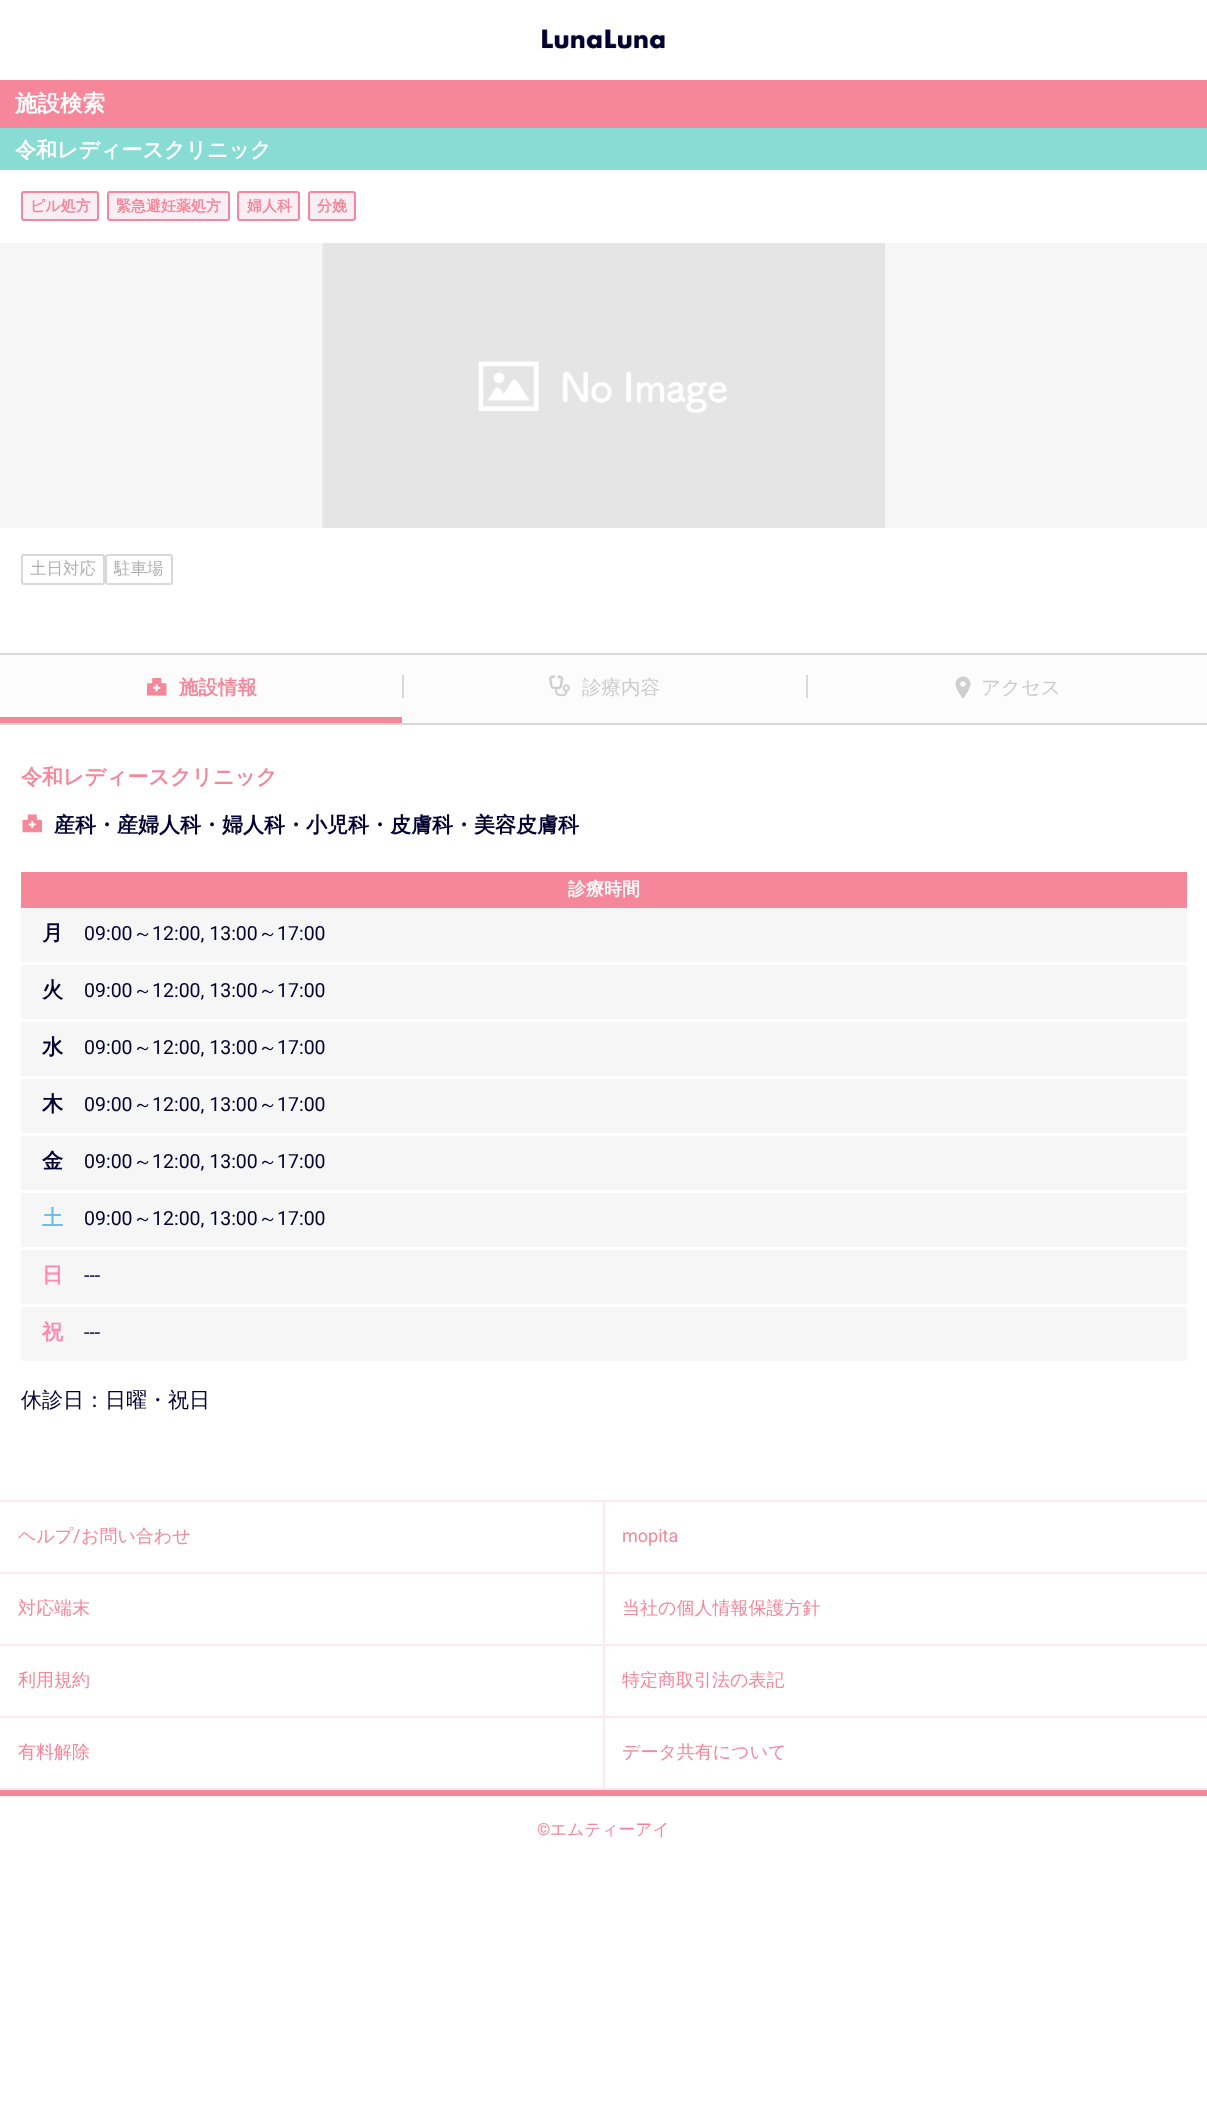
<svg xmlns="http://www.w3.org/2000/svg" xmlns:xlink="http://www.w3.org/1999/xlink" width="1207" height="2114" viewBox="0 0 1207 2114">
<style>
.cls-1{font:bold 22.5px WenQuanYi Zen Hei;fill:#ffffff}
.cls-2{font:bold 21px WenQuanYi Zen Hei;fill:#ffffff}
.cls-3{font:bold 15px WenQuanYi Zen Hei;fill:#f68699}
.cls-4{font:500 16.5px WenQuanYi Zen Hei;fill:#b0b0b0}
.cls-5{font:bold 19.5px WenQuanYi Zen Hei;fill:#f68699}
.cls-6{font:500 19.5px WenQuanYi Zen Hei;fill:#cbcbcb}
.cls-7{font:bold 21px WenQuanYi Zen Hei;fill:#f68699}
.cls-8{font:bold 21px WenQuanYi Zen Hei;fill:#000031}
.cls-9{font:bold 18px WenQuanYi Zen Hei;fill:#ffffff}
.cls-10{font:19.5px Roboto;fill:#000031}
.cls-11{font:500 19.5px WenQuanYi Zen Hei;fill:#000031}
.cls-12{font:bold 21px WenQuanYi Zen Hei;fill:#6ebee9}
.cls-13{font:bold 21px WenQuanYi Zen Hei;fill:#ff88ac}
.cls-14{font:500 21px WenQuanYi Zen Hei;fill:#000031}
.cls-15{font:500 18px WenQuanYi Zen Hei;fill:#f68699}
.cls-16{font:18px Roboto;fill:#f68699}
.cls-17{font:16.75px Roboto;fill:#f68699}
.cls-18{font:500 16.75px WenQuanYi Zen Hei;fill:#f68699}
</style>
<rect width="100%" height="100%" fill="#ffffff"/>
<image xlink:href="image0.png" x="542" y="29" width="123" height="20"/>
<rect fill="#f68699" x="0" y="80" width="1207" height="48"/>
<rect fill="#89dcd4" x="0" y="128" width="1207" height="42"/>
<rect fill="#f8eef4" stroke="#f68699" stroke-width="2" x="22" y="192" width="76" height="28" rx="2"/>
<rect fill="#f8eef4" stroke="#f68699" stroke-width="2" x="108" y="192" width="121" height="28" rx="2"/>
<rect fill="#f8eef4" stroke="#f68699" stroke-width="2" x="238" y="192" width="61" height="28" rx="2"/>
<rect fill="#f8eef4" stroke="#f68699" stroke-width="2" x="309" y="192" width="46" height="28" rx="2"/>
<rect fill="#f6f6f6" x="0" y="243" width="1207" height="285"/>
<image xlink:href="image1.png" x="322" y="243" width="563" height="285"/>
<rect fill="none" stroke="#d8d8d8" stroke-width="2" x="22" y="555" width="82" height="29" rx="2"/>
<rect fill="none" stroke="#d8d8d8" stroke-width="2" x="106" y="555" width="66" height="29" rx="2"/>
<rect fill="#fcfcfc" x="0" y="655" width="1207" height="68"/>
<rect fill="#d8d8d8" x="0" y="653" width="1207" height="2"/>
<rect fill="#d8d8d8" x="0" y="723" width="1207" height="2"/>
<image xlink:href="image2.png" x="147" y="678" width="20" height="18"/>
<rect fill="#f68699" x="0" y="717" width="402" height="6"/>
<rect fill="#d8d8d8" x="402" y="675" width="2" height="23"/>
<image xlink:href="image3.png" x="549" y="675" width="21" height="22"/>
<rect fill="#d8d8d8" x="806" y="675" width="2" height="23"/>
<image xlink:href="image4.png" x="955" y="676" width="16" height="23"/>
<image xlink:href="image5.png" x="22" y="814" width="20" height="19"/>
<rect fill="#f68699" x="21" y="872" width="1166" height="36"/>
<rect fill="#f6f6f6" x="21" y="908" width="1166" height="54"/>
<rect fill="#f6f6f6" x="21" y="965" width="1166" height="54"/>
<rect fill="#f6f6f6" x="21" y="1022" width="1166" height="54"/>
<rect fill="#f6f6f6" x="21" y="1079" width="1166" height="54"/>
<rect fill="#f6f6f6" x="21" y="1136" width="1166" height="54"/>
<rect fill="#f6f6f6" x="21" y="1193" width="1166" height="54"/>
<rect fill="#f6f6f6" x="21" y="1250" width="1166" height="54"/>
<rect fill="#f6f6f6" x="21" y="1307" width="1166" height="54"/>
<rect fill="#ffe8ee" x="0" y="1500" width="1207" height="2"/>
<rect fill="#ffe8ee" x="603" y="1502" width="2" height="288"/>
<rect fill="#ffe8ee" x="0" y="1572" width="1207" height="2"/>
<rect fill="#ffe8ee" x="0" y="1644" width="1207" height="2"/>
<rect fill="#ffe8ee" x="0" y="1716" width="1207" height="2"/>
<rect fill="#ffe8ee" x="0" y="1788" width="1207" height="2"/>
<rect fill="#f68699" x="0" y="1790" width="1207" height="6"/>
<text class="cls-1" x="15" y="111">施設検索</text>
<text class="cls-2" x="15" y="157">令和レディースクリニック</text>
<text class="cls-3" x="30" y="211">ピル処方</text>
<text class="cls-3" x="116" y="211">緊急避妊薬処方</text>
<text class="cls-3" x="247" y="211">婦人科</text>
<text class="cls-3" x="317" y="211">分娩</text>
<text class="cls-4" x="30" y="574">土日対応</text>
<text class="cls-4" x="114" y="574">駐車場</text>
<text class="cls-5" x="179" y="694">施設情報</text>
<text class="cls-6" x="582" y="694">診療内容</text>
<text class="cls-6" x="981" y="694">アクセス</text>
<text class="cls-7" x="21" y="784">令和レディースクリニック</text>
<text class="cls-8" x="54" y="832">産科・産婦人科・婦人科・小児科・皮膚科・美容皮膚科</text>
<text class="cls-9" x="568" y="895">診療時間</text>
<text class="cls-8" x="42" y="940">月</text>
<text class="cls-10" x="84" y="940">09:00</text>
<text class="cls-11" x="133" y="940">～</text>
<text class="cls-10" x="152" y="940">12:00, 13:00</text>
<text class="cls-11" x="258" y="940">～</text>
<text class="cls-10" x="277" y="940">17:00</text>
<text class="cls-8" x="42" y="997">火</text>
<text class="cls-10" x="84" y="997">09:00</text>
<text class="cls-11" x="133" y="997">～</text>
<text class="cls-10" x="152" y="997">12:00, 13:00</text>
<text class="cls-11" x="258" y="997">～</text>
<text class="cls-10" x="277" y="997">17:00</text>
<text class="cls-8" x="42" y="1054">水</text>
<text class="cls-10" x="84" y="1054">09:00</text>
<text class="cls-11" x="133" y="1054">～</text>
<text class="cls-10" x="152" y="1054">12:00, 13:00</text>
<text class="cls-11" x="258" y="1054">～</text>
<text class="cls-10" x="277" y="1054">17:00</text>
<text class="cls-8" x="42" y="1111">木</text>
<text class="cls-10" x="84" y="1111">09:00</text>
<text class="cls-11" x="133" y="1111">～</text>
<text class="cls-10" x="152" y="1111">12:00, 13:00</text>
<text class="cls-11" x="258" y="1111">～</text>
<text class="cls-10" x="277" y="1111">17:00</text>
<text class="cls-8" x="42" y="1168">金</text>
<text class="cls-10" x="84" y="1168">09:00</text>
<text class="cls-11" x="133" y="1168">～</text>
<text class="cls-10" x="152" y="1168">12:00, 13:00</text>
<text class="cls-11" x="258" y="1168">～</text>
<text class="cls-10" x="277" y="1168">17:00</text>
<text class="cls-12" x="42" y="1225">土</text>
<text class="cls-10" x="84" y="1225">09:00</text>
<text class="cls-11" x="133" y="1225">～</text>
<text class="cls-10" x="152" y="1225">12:00, 13:00</text>
<text class="cls-11" x="258" y="1225">～</text>
<text class="cls-10" x="277" y="1225">17:00</text>
<text class="cls-13" x="42" y="1282">日</text>
<text class="cls-10" x="84" y="1282">---</text>
<text class="cls-13" x="42" y="1339">祝</text>
<text class="cls-10" x="84" y="1339">---</text>
<text class="cls-14" x="21" y="1407">休診日：日曜・祝日</text>
<text class="cls-15" x="18" y="1542">ヘルプ</text>
<text class="cls-16" x="73" y="1542">/</text>
<text class="cls-15" x="81" y="1542">お問い合わせ</text>
<text class="cls-16" x="622" y="1542">mopita</text>
<text class="cls-15" x="18" y="1614">対応端末</text>
<text class="cls-15" x="622" y="1614">当社の個人情報保護方針</text>
<text class="cls-15" x="18" y="1686">利用規約</text>
<text class="cls-15" x="622" y="1686">特定商取引法の表記</text>
<text class="cls-15" x="18" y="1758">有料解除</text>
<text class="cls-15" x="622" y="1758">データ共有について</text>
<text class="cls-17" x="537" y="1835">©</text>
<text class="cls-18" x="550" y="1835">エムティーアイ</text>
</svg>
